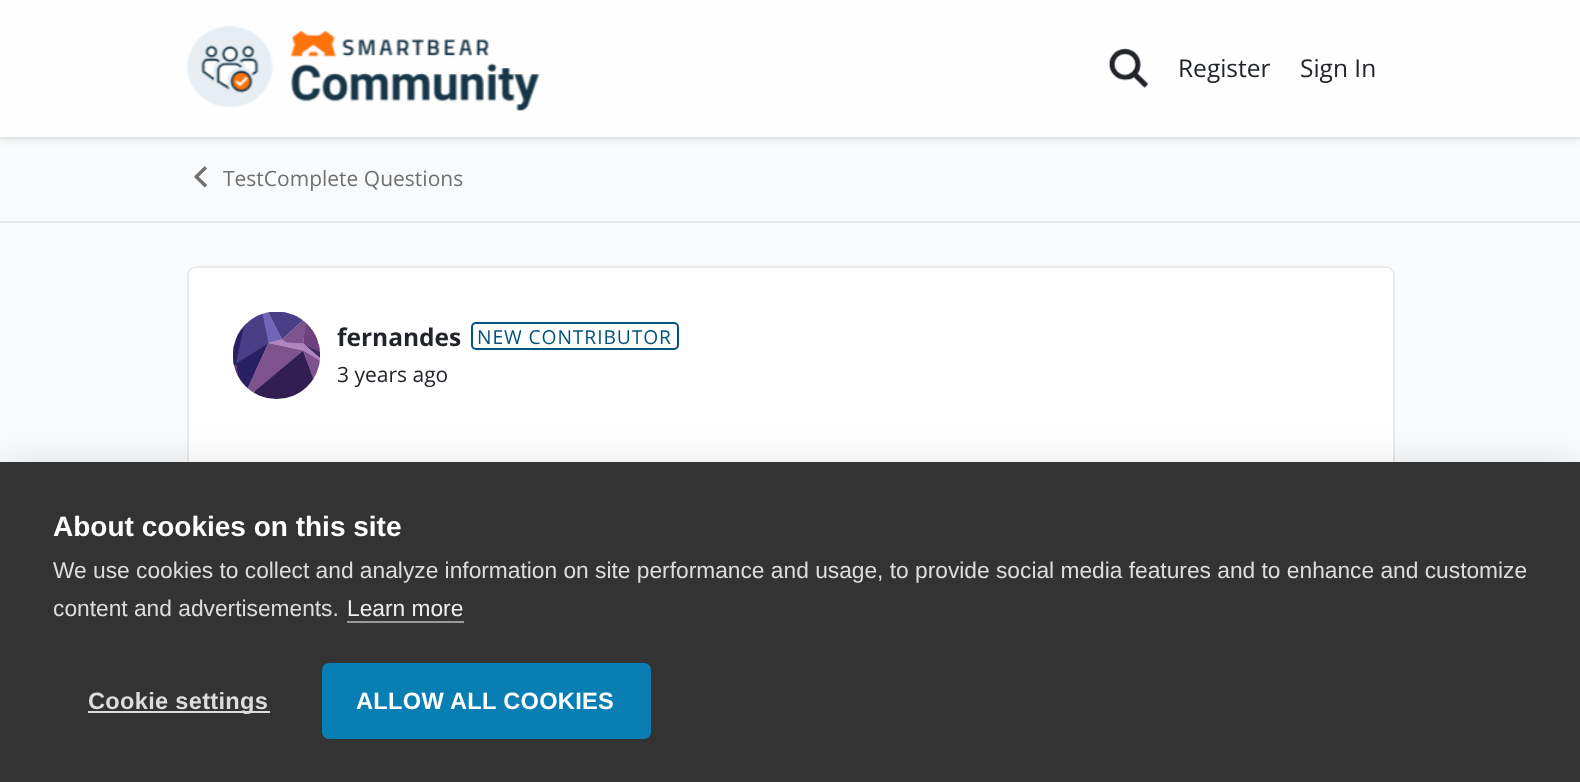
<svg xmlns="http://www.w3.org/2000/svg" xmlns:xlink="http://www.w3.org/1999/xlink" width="1580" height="782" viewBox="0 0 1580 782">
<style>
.cls-1{font:24.5px Open Sans;fill:#212429}
.cls-2{font:21px Open Sans;fill:#707070}
.cls-3{font:bold 24.5px Open Sans;fill:#212429}
.cls-4{font:19.25px Open Sans;letter-spacing:0.9px;fill:#00537c}
.cls-5{font:21px Open Sans;fill:#212429}
.cls-6{font:bold 28px Liberation Sans;fill:#ffffff}
.cls-7{font:22.75px Liberation Sans;fill:#dddddd}
.cls-8{font:22.75px Liberation Sans;fill:#eeeeee}
.cls-9{font:bold 23.6px Liberation Sans;letter-spacing:0.3px;fill:#dddddd}
.cls-10{font:bold 23.6px Liberation Sans;letter-spacing:0.3px;fill:#ffffff}
</style>
<rect width="100%" height="100%" fill="#f8fafb"/>
<rect fill="#333333" fill-opacity="0.06" filter="blur(3.5px)" x="0" y="4" width="1580" height="138"/>
<rect fill="#fefefe" x="0" y="0" width="1580" height="138"/>
<rect fill="#000000" fill-opacity="0.08" x="0" y="137" width="1580" height="2"/>
<image xlink:href="image0.png" x="186" y="26" width="354" height="85"/>
<image xlink:href="image1.png" x="1108" y="48" width="41" height="41"/>
<rect fill="#e4e6e7" x="0" y="221" width="1580" height="2"/>
<image xlink:href="image2.png" x="194" y="166" width="13" height="22"/>
<rect fill="#ffffff" x="187" y="266" width="1208" height="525" rx="9"/>
<rect fill="none" stroke="#000000" stroke-opacity="0.08" stroke-width="2" x="188" y="267" width="1206" height="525" rx="8"/>
<circle fill="#d9d9d9" cx="276.5" cy="355.5" r="43.5"/>
<image xlink:href="image3.png" x="233" y="312" width="87" height="87"/>
<rect fill="none" stroke="#00537c" stroke-width="2" x="472" y="323" width="206" height="26" rx="4"/>
<rect fill="#000000" fill-opacity="0.1" filter="blur(17.5px)" x="0" y="462" width="1580" height="320"/>
<rect fill="#333333" x="0" y="462" width="1580" height="320"/>
<rect fill="#999999" x="347" y="621" width="117" height="2"/>
<rect fill="#dddddd" x="88" y="711" width="182" height="2"/>
<rect fill="#097eb2" x="322" y="663" width="329" height="76" rx="7"/>
<text class="cls-1" x="1178" y="77">Register</text>
<text class="cls-1" x="1300" y="77">Sign In</text>
<text class="cls-2" x="223" y="186">TestComplete Questions</text>
<text class="cls-3" x="337" y="346">fernandes</text>
<text class="cls-4" x="477" y="344">NEW CONTRIBUTOR</text>
<text class="cls-5" x="337" y="382">3 years ago</text>
<text class="cls-6" x="53" y="536">About cookies on this site</text>
<text class="cls-7"><tspan x="53" y="578">We use cookies to collect and analyze information on site performance and usage, to provide social media features and to enhance and customize</tspan><tspan x="53" y="616">content and advertisements.</tspan></text>
<text class="cls-8" x="347" y="616">Learn more</text>
<text class="cls-9" x="88" y="709">Cookie settings</text>
<text class="cls-10" x="356" y="709">ALLOW ALL COOKIES</text>
</svg>
